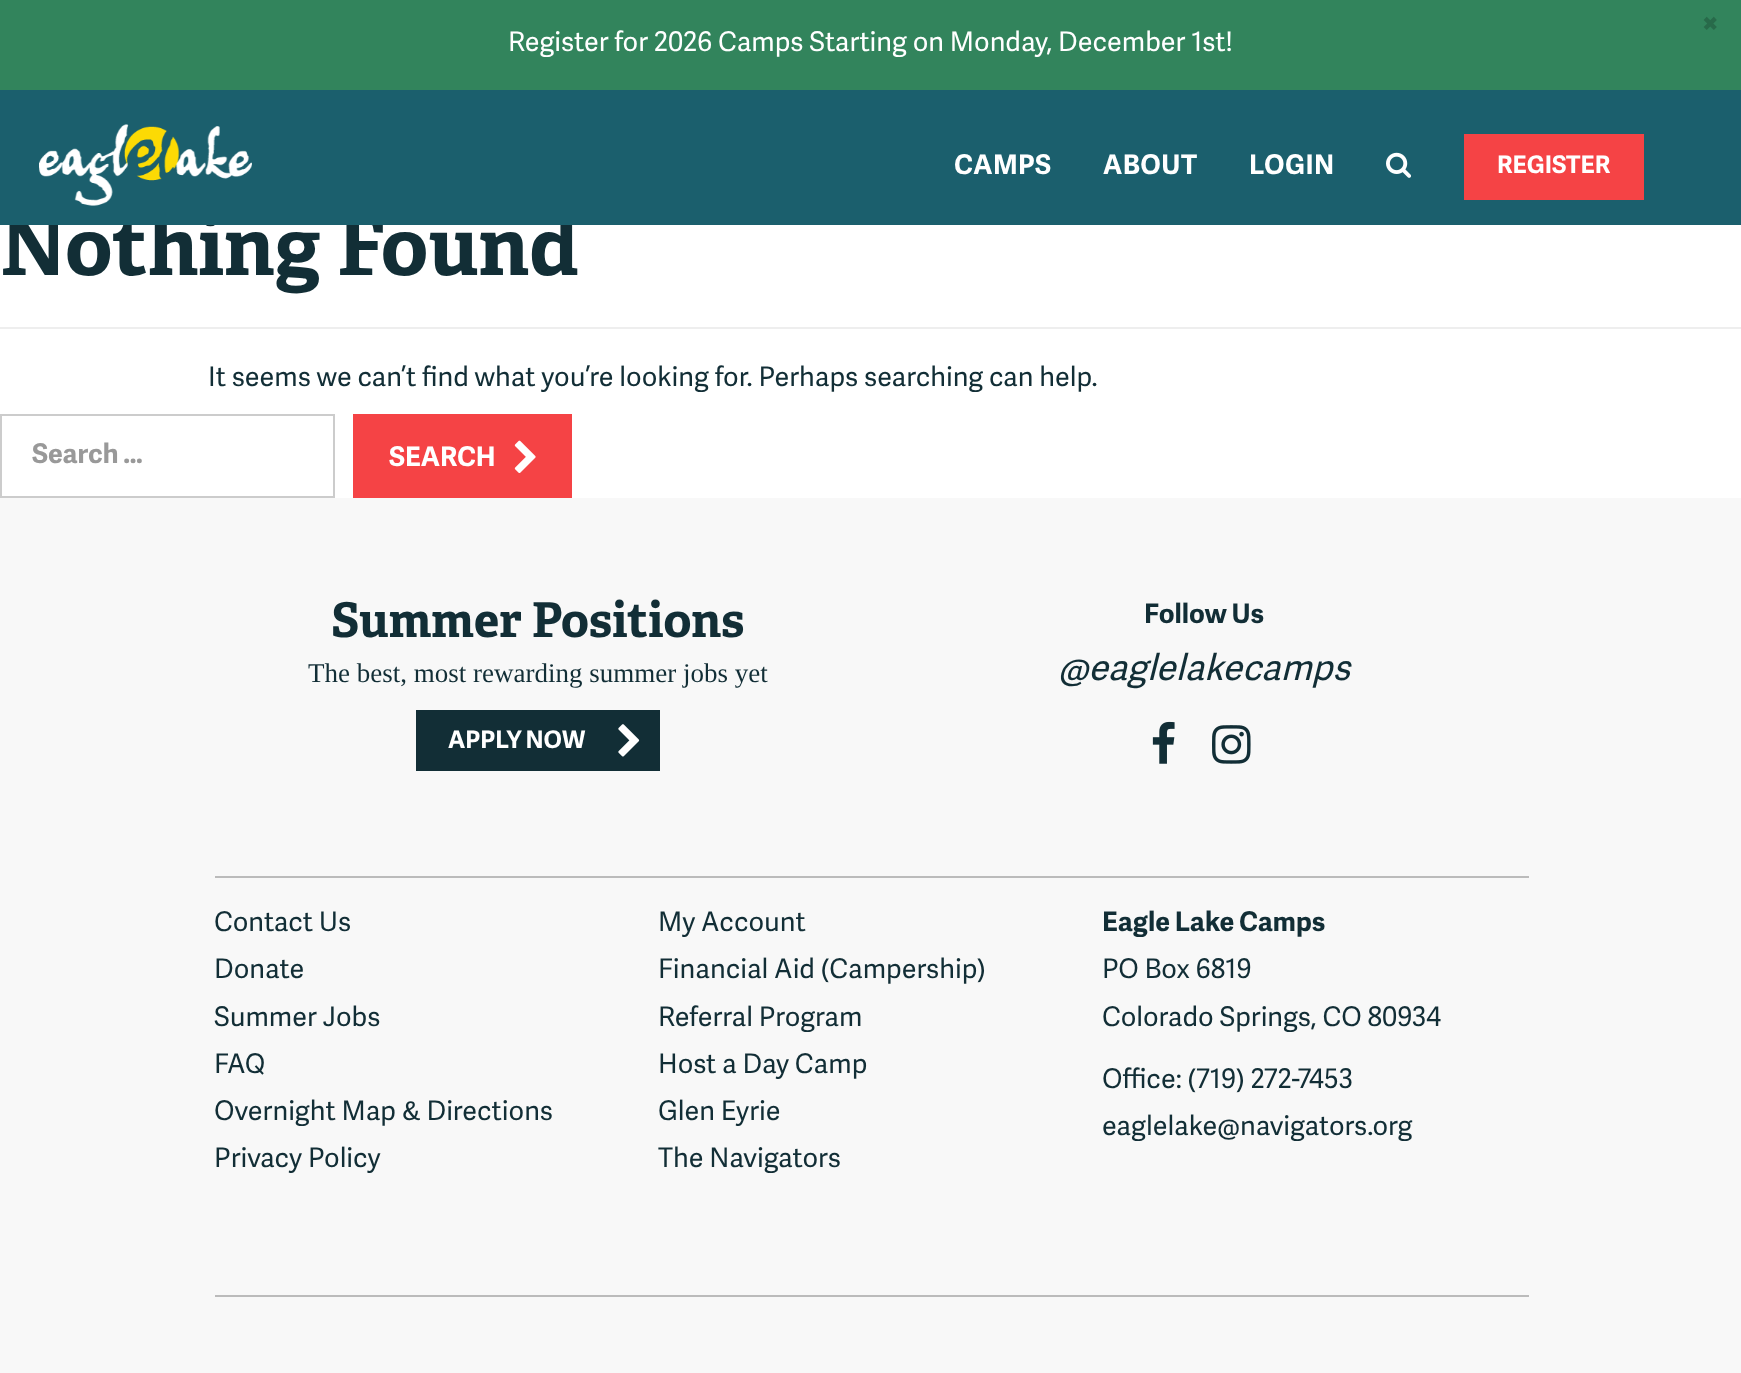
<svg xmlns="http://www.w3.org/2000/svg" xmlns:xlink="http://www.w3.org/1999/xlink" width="1741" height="1373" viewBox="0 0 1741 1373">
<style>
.cls-1{font:bold 36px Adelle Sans;fill:#286a4a}
.cls-2{font:27px Adelle Sans;fill:#ffffff}
.cls-3{font:bold 81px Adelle;fill:#122e36}
.cls-4{font:bold 24.25px Adelle Sans;fill:#ffffff}
.cls-5{font:bold 27px Adelle Sans;letter-spacing:0.5px;fill:#ffffff}
.cls-6{font:27px Adelle Sans;fill:#122e36}
.cls-7{font:bold 27px Adelle Sans;fill:#999999}
.cls-8{font:bold 27px Adelle Sans;fill:#ffffff}
.cls-9{font:bold 48px Adelle;fill:#122e36}
.cls-10{font:27px Liberation Serif;fill:#122e36}
.cls-11{font:bold 27px Adelle Sans;fill:#122e36}
.cls-12{font:italic 36px Adelle Sans;fill:#122e36}
</style>
<rect width="100%" height="100%" fill="#ffffff"/>
<rect fill="#32845c" x="0" y="0" width="1741" height="90"/>
<rect fill="#eeeeee" x="0" y="327" width="1741" height="2"/>
<rect fill="none" stroke="#cccccc" stroke-width="2" x="1" y="415" width="333" height="82"/>
<rect fill="#f54345" x="353" y="414" width="219" height="84"/>
<image xlink:href="image2.png" x="514" y="440" width="22" height="33"/>
<rect fill="#f8f8f8" x="0" y="498" width="1741" height="875"/>
<rect fill="#122e36" x="416" y="710" width="244" height="61"/>
<image xlink:href="image3.png" x="618" y="724" width="22" height="33"/>
<image xlink:href="image4.png" x="1152" y="721" width="23" height="43"/>
<image xlink:href="image5.png" x="1212" y="725" width="39" height="39"/>
<rect fill="#bbbbbb" x="215" y="876" width="1314" height="2"/>
<rect fill="#bbbbbb" x="215" y="1295" width="1314" height="2"/>
<text class="cls-1" x="1700" y="35">×</text>
<text class="cls-2" x="508" y="51">Register for 2026 Camps Starting on Monday, December 1st!</text>
<text class="cls-3" x="0" y="275">Nothing Found</text>
<rect fill="#1b5f6d" x="0" y="90" width="1741" height="135"/>
<image xlink:href="image0.png" x="39" y="124" width="213" height="82"/>
<rect fill="#f54345" x="1464" y="134" width="180" height="66"/>
<text class="cls-4" x="1497" y="173">REGISTER</text>
<image xlink:href="image1.png" x="1386" y="152" width="25" height="26"/>
<text class="cls-5" x="1249" y="174">LOGIN</text>
<text class="cls-5" x="1103" y="174">ABOUT</text>
<text class="cls-5" x="954" y="174">CAMPS</text>
<text class="cls-6" x="208" y="386">It seems we can’t find what you’re looking for. Perhaps searching can help.</text>
<text class="cls-7" x="32" y="463">Search …</text>
<text class="cls-8" x="389" y="466">SEARCH</text>
<text class="cls-9" x="331" y="637">Summer Positions</text>
<text class="cls-10" x="308" y="682">The best, most rewarding summer jobs yet</text>
<text class="cls-4" x="448" y="748">APPLY NOW</text>
<text class="cls-11" x="1144" y="623">Follow Us</text>
<text class="cls-12" x="1058" y="680">@eaglelakecamps</text>
<text class="cls-6"><tspan x="214" y="931">Contact Us</tspan><tspan x="214" y="978">Donate</tspan><tspan x="214" y="1026">Summer Jobs</tspan><tspan x="214" y="1073">FAQ</tspan><tspan x="214" y="1120">Overnight Map &amp; Directions</tspan><tspan x="214" y="1167">Privacy Policy</tspan></text>
<text class="cls-6"><tspan x="658" y="931">My Account</tspan><tspan x="658" y="978">Financial Aid (Campership)</tspan><tspan x="658" y="1026">Referral Program</tspan><tspan x="658" y="1073">Host a Day Camp</tspan><tspan x="658" y="1120">Glen Eyrie</tspan><tspan x="658" y="1167">The Navigators</tspan></text>
<text class="cls-11" x="1102" y="931">Eagle Lake Camps</text>
<text class="cls-6"><tspan x="1102" y="978">PO Box 6819</tspan><tspan x="1102" y="1026">Colorado Springs, CO 80934</tspan></text>
<text class="cls-6"><tspan x="1102" y="1088">Office: (719) 272-7453</tspan><tspan x="1102" y="1135">eaglelake@navigators.org</tspan></text>
</svg>
